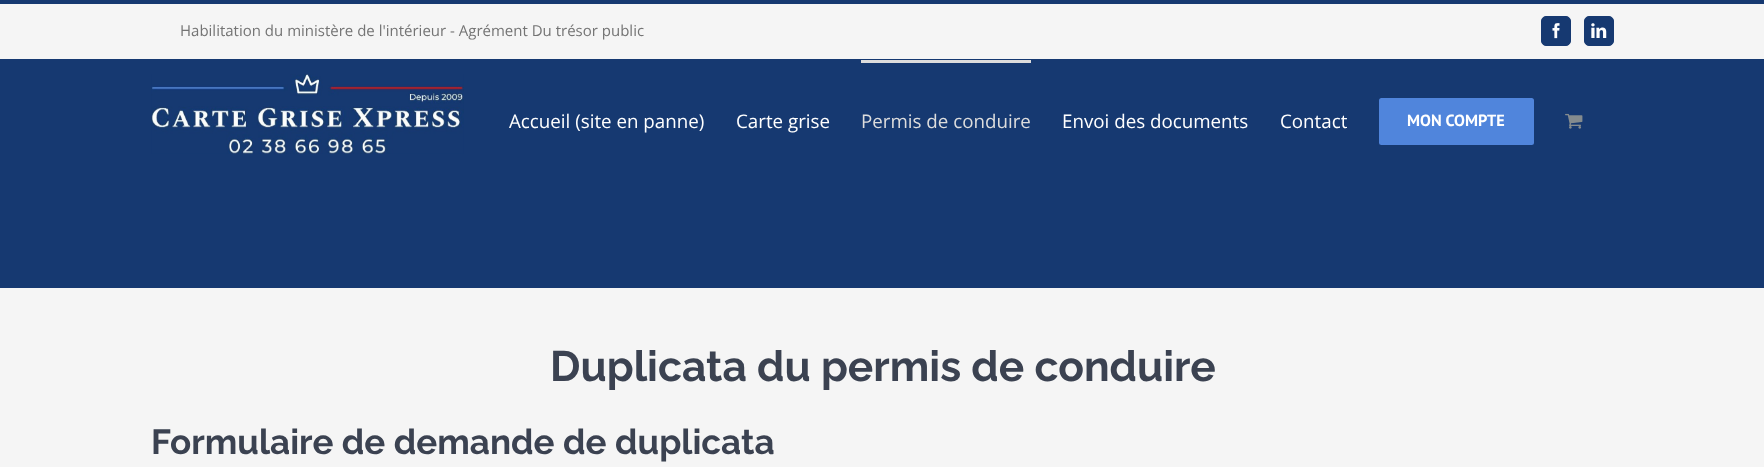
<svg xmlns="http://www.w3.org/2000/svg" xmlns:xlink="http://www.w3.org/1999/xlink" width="1764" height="467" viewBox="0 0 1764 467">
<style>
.cls-1{font:15px Open Sans;fill:#747474}
.cls-2{font:18.75px Open Sans;fill:#ffffff}
.cls-3{font:18.75px Open Sans;fill:#dddddd}
.cls-4{font:bold 16.25px PT Sans;fill:#ffffff}
.cls-5{font:100 42.5px Raleway;fill:#3b4251}
.cls-6{font:100 35px Raleway;fill:#3b4251}
</style>
<rect width="100%" height="100%" fill="#f5f5f5"/>
<rect fill="#163971" x="0" y="0" width="1764" height="4"/>
<rect fill="#163971" x="0" y="59" width="1764" height="229"/>
<rect fill="#163971" stroke="#163971" x="1541.5" y="16.5" width="29" height="29" rx="4.5"/>
<image xlink:href="image0.png" x="1552" y="23" width="8" height="16"/>
<rect fill="#163971" stroke="#163971" x="1584.5" y="16.5" width="29" height="29" rx="4.5"/>
<image xlink:href="image1.png" x="1591" y="23" width="16" height="15"/>
<image xlink:href="image2.png" x="151" y="74" width="313" height="80"/>
<rect fill="#dddddd" x="861" y="60" width="170" height="3"/>
<rect fill="#5085dc" x="1379" y="98" width="155" height="47" rx="2.5"/>
<image xlink:href="image3.png" x="1565" y="113" width="18" height="16"/>
<text class="cls-1" x="180" y="36">Habilitation du ministère de l'intérieur - Agrément Du trésor public</text>
<text class="cls-2" x="509" y="128">Accueil (site en panne)</text>
<text class="cls-2" x="736" y="128">Carte grise</text>
<text class="cls-3" x="861" y="128">Permis de conduire</text>
<text class="cls-2" x="1062" y="128">Envoi des documents</text>
<text class="cls-2" x="1280" y="128">Contact</text>
<text class="cls-4" x="1407" y="126">MON COMPTE</text>
<text class="cls-5" x="550" y="381">Duplicata du permis de conduire</text>
<text class="cls-6" x="151" y="454">Formulaire de demande de duplicata</text>
</svg>
